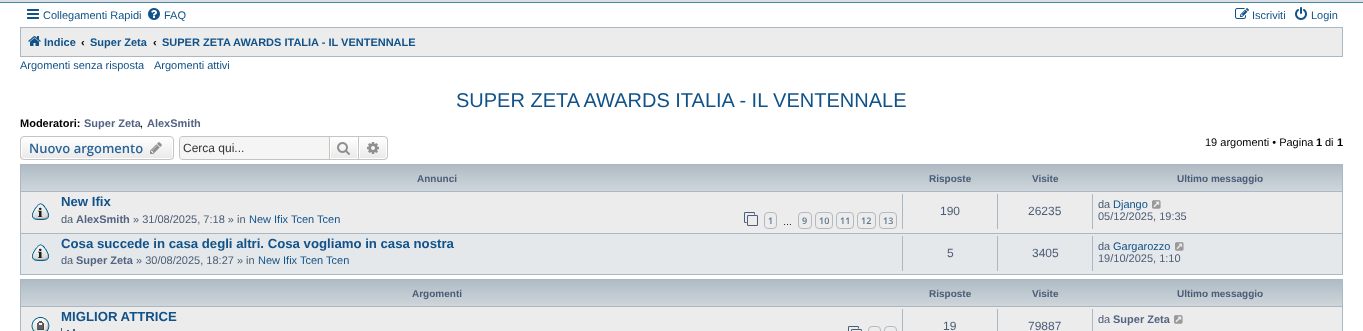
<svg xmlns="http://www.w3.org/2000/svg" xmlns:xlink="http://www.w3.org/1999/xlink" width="1363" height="331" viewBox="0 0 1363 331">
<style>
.cls-1{font:11px Liberation Sans;fill:#105289}
.cls-2{font:bold 11px Liberation Sans;fill:#105289}
.cls-3{font:bold 11px Liberation Sans;fill:#000000}
.cls-4{font:20px Liberation Sans;fill:#105289}
.cls-5{font:bold 11px Liberation Sans;fill:#536482}
.cls-6{font:11px Liberation Sans;fill:#000000}
.cls-7{font:600 13px Open Sans;fill:#2a6496}
.cls-8{font:12px Liberation Sans;fill:#333333}
.cls-9{font:bold 10px Liberation Sans;fill:#4c5d77}
.cls-10{font:bold 13.2px Liberation Sans;fill:#105289}
.cls-11{font:11px Liberation Sans;fill:#4c5d77}
.cls-12{font:600 9px Open Sans;fill:#5c758c}
.cls-13{font:9px Liberation Sans;fill:#000000}
.cls-14{font:12px Liberation Sans;fill:#4c5d77}
</style>
<defs>
<clipPath id="clip1"><rect x="20" y="136" width="154" height="24" rx="4"/></clipPath>
<linearGradient id="g1" gradientUnits="userSpaceOnUse" x1="97" y1="137" x2="97" y2="159"><stop offset="0" stop-color="#ffffff"/><stop offset="1" stop-color="#e9e9e9"/></linearGradient>
<linearGradient id="g2" gradientUnits="userSpaceOnUse" x1="344" y1="137" x2="344" y2="159"><stop offset="0" stop-color="#ffffff"/><stop offset="1" stop-color="#e9e9e9"/></linearGradient>
<linearGradient id="g3" gradientUnits="userSpaceOnUse" x1="373" y1="137" x2="373" y2="159"><stop offset="0" stop-color="#ffffff"/><stop offset="1" stop-color="#e9e9e9"/></linearGradient>
</defs>
<rect width="100%" height="100%" fill="#ffffff"/>
<rect fill="#d9dfe4" x="0" y="0" width="1363" height="2"/>
<rect fill="#4787a7" x="0" y="2" width="1363" height="1"/>
<image xlink:href="image0.png" x="27" y="9" width="12" height="10"/>
<image xlink:href="image1.png" x="148" y="8" width="12" height="12"/>
<image xlink:href="image2.png" x="1235" y="8" width="14" height="11"/>
<image xlink:href="image3.png" x="1295" y="7" width="12" height="13"/>
<rect fill="#ececec" stroke="#a9b8c2" x="20.5" y="27.5" width="1322" height="29"/>
<image xlink:href="image4.png" x="28" y="36" width="13" height="10"/>
<g clip-path="url(#clip1)">
<rect fill="url(#g1)" x="20" y="137" width="154" height="22"/>
</g>
<rect fill="none" stroke="#ffffff" x="21.5" y="137.5" width="151" height="21" rx="2.5"/>
<rect fill="none" stroke="#c7c3bf" x="20.5" y="136.5" width="153" height="23" rx="3.5"/>
<image xlink:href="image5.png" x="150" y="142" width="12" height="12"/>
<path fill="#f5f5f5" d="M183 137H329V159H183C181.5 159 180 157.5 180 156V140C180 138.5 181.5 137 183 137Z"/>
<path fill="#c7c3bf" fill-rule="evenodd" d="M183 136H329V160H183C181 160 179 158 179 156V140C179 138 181 136 183 136ZM183 137H329V159H183C181 159 180 158 180 156V140C180 138 181 137 183 137Z"/>
<rect fill="url(#g2)" x="331" y="140" width="26" height="18"/>
<rect fill="none" stroke="#c7c3bf" x="329.5" y="136.5" width="29" height="23"/>
<image xlink:href="image6.png" x="337" y="142" width="13" height="13"/>
<path fill="url(#g3)" stroke="#ffffff" d="M359.5 137.5H384C385.5 137.5 386.5 138.5 386.5 140V156C386.5 157.5 385.5 158.5 384 158.5H359.5Z"/>
<path fill="#c7c3bf" fill-rule="evenodd" d="M359 136H384C386 136 388 138 388 140V156C388 158 386 160 384 160H359ZM359 137H384C385.5 137 387 138.5 387 140V156C387 157.5 385.5 159 384 159H359Z"/>
<image xlink:href="image7.png" x="367" y="142" width="12" height="12"/>
<image xlink:href="image8.png" x="21" y="165" width="1321" height="26"/>
<rect fill="none" stroke="#a9b8c2" x="20.5" y="164.5" width="1322" height="110"/>
<rect fill="#ececec" x="21" y="192" width="1321" height="41"/>
<rect fill="#a9b8c2" x="21" y="191" width="1321" height="1"/>
<image xlink:href="image9.png" x="31" y="203" width="19" height="17"/>
<image xlink:href="image10.png" x="744" y="212" width="14" height="14"/>
<rect fill="none" stroke="#b4bac0" x="764.5" y="212.5" width="12" height="16" rx="3.5"/>
<rect fill="none" stroke="#b4bac0" x="798.5" y="212.5" width="13" height="16" rx="3.5"/>
<rect fill="none" stroke="#b4bac0" x="815.5" y="212.5" width="17" height="16" rx="3.5"/>
<rect fill="none" stroke="#b4bac0" x="836.5" y="212.5" width="17" height="16" rx="3.5"/>
<rect fill="none" stroke="#b4bac0" x="857.5" y="212.5" width="18" height="16" rx="3.5"/>
<rect fill="none" stroke="#b4bac0" x="879.5" y="212.5" width="17" height="16" rx="3.5"/>
<rect fill="#a9b8c2" x="902" y="194" width="1" height="35"/>
<rect fill="#a9b8c2" x="997" y="194" width="1" height="35"/>
<rect fill="#a9b8c2" x="1092" y="194" width="1" height="35"/>
<image xlink:href="image11.png" x="1152" y="200" width="9" height="9"/>
<rect fill="#e5e8ea" x="21" y="234" width="1321" height="40"/>
<rect fill="#a9b8c2" x="21" y="233" width="1321" height="1"/>
<image xlink:href="image12.png" x="31" y="244" width="19" height="17"/>
<rect fill="#a9b8c2" x="902" y="236" width="1" height="35"/>
<rect fill="#a9b8c2" x="997" y="236" width="1" height="35"/>
<rect fill="#a9b8c2" x="1092" y="236" width="1" height="35"/>
<image xlink:href="image13.png" x="1175" y="242" width="9" height="9"/>
<image xlink:href="image8.png" x="21" y="280" width="1321" height="26"/>
<rect fill="none" stroke="#a9b8c2" x="20.5" y="279.5" width="1322" height="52"/>
<rect fill="#ececec" x="21" y="307" width="1321" height="24"/>
<rect fill="#a9b8c2" x="21" y="306" width="1321" height="1"/>
<image xlink:href="image14.png" x="31" y="317" width="19" height="14"/>
<image xlink:href="image15.png" x="61" y="328" width="14" height="3"/>
<image xlink:href="image16.png" x="848" y="326" width="14" height="5"/>
<rect fill="none" stroke="#b4bac0" x="868.5" y="326.5" width="12" height="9" rx="3.5"/>
<rect fill="none" stroke="#b4bac0" x="884.5" y="326.5" width="12" height="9" rx="3.5"/>
<rect fill="#a9b8c2" x="902" y="309" width="1" height="22"/>
<rect fill="#a9b8c2" x="997" y="309" width="1" height="22"/>
<rect fill="#a9b8c2" x="1092" y="309" width="1" height="22"/>
<image xlink:href="image11.png" x="1174" y="315" width="9" height="9"/>
<text class="cls-1" x="43" y="19">Collegamenti Rapidi</text>
<text class="cls-1" x="164" y="19">FAQ</text>
<text class="cls-1" x="1252" y="19">Iscriviti</text>
<text class="cls-1" x="1311" y="19">Login</text>
<text class="cls-2" x="44" y="46">Indice</text>
<text class="cls-3" x="81" y="46">‹</text>
<text class="cls-2" x="90" y="46">Super Zeta</text>
<text class="cls-3" x="153" y="46">‹</text>
<text class="cls-2" x="162" y="46">SUPER ZETA AWARDS ITALIA - IL VENTENNALE</text>
<text class="cls-1" x="20" y="69">Argomenti senza risposta</text>
<text class="cls-1" x="154" y="69">Argomenti attivi</text>
<text class="cls-4" x="456" y="107">SUPER ZETA AWARDS ITALIA - IL VENTENNALE</text>
<text class="cls-3" x="20" y="127">Moderatori:</text>
<text class="cls-5" x="84" y="127">Super Zeta</text>
<text class="cls-6" x="140" y="127">,</text>
<text class="cls-5" x="147" y="127">AlexSmith</text>
<text class="cls-7" x="29" y="153">Nuovo argomento</text>
<text class="cls-8" x="183" y="152">Cerca qui...</text>
<text class="cls-6" x="1205" y="146">19 argomenti • Pagina</text>
<text class="cls-3" x="1316" y="146">1</text>
<text class="cls-6" x="1325" y="146">di</text>
<text class="cls-3" x="1337" y="146">1</text>
<text class="cls-9" x="417" y="182">Annunci</text>
<text class="cls-9" x="929" y="182">Risposte</text>
<text class="cls-9" x="1032" y="182">Visite</text>
<text class="cls-9" x="1177" y="182">Ultimo messaggio</text>
<text class="cls-10" x="61" y="206">New Ifix</text>
<text class="cls-11" x="61" y="223">da</text>
<text class="cls-5" x="76" y="223">AlexSmith</text>
<text class="cls-11" x="133" y="223">» 31/08/2025, 7:18 » in</text>
<text class="cls-1" x="249" y="223">New Ifix Tcen Tcen</text>
<text class="cls-12" x="768" y="224">1</text>
<text class="cls-13" x="783" y="225">…</text>
<text class="cls-12" x="802" y="224">9</text>
<text class="cls-12" x="819" y="224">10</text>
<text class="cls-12" x="840" y="224">11</text>
<text class="cls-12" x="861" y="224">12</text>
<text class="cls-12" x="883" y="224">13</text>
<text class="cls-14" x="940" y="215">190</text>
<text class="cls-14" x="1028" y="215">26235</text>
<text class="cls-11" x="1098" y="208">da</text>
<text class="cls-1" x="1113" y="208">Django</text>
<text class="cls-11" x="1098" y="220">05/12/2025, 19:35</text>
<text class="cls-10" x="61" y="248">Cosa succede in casa degli altri. Cosa vogliamo in casa nostra</text>
<text class="cls-11" x="61" y="264">da</text>
<text class="cls-5" x="76" y="264">Super Zeta</text>
<text class="cls-11" x="136" y="264">» 30/08/2025, 18:27 » in</text>
<text class="cls-1" x="258" y="264">New Ifix Tcen Tcen</text>
<text class="cls-14" x="947" y="257">5</text>
<text class="cls-14" x="1032" y="257">3405</text>
<text class="cls-11" x="1098" y="250">da</text>
<text class="cls-1" x="1113" y="250">Gargarozzo</text>
<text class="cls-11" x="1098" y="262">19/10/2025, 1:10</text>
<text class="cls-9" x="412" y="297">Argomenti</text>
<text class="cls-9" x="929" y="297">Risposte</text>
<text class="cls-9" x="1032" y="297">Visite</text>
<text class="cls-9" x="1177" y="297">Ultimo messaggio</text>
<text class="cls-10" x="61" y="321">MIGLIOR ATTRICE</text>
<text class="cls-14" x="943" y="330">19</text>
<text class="cls-14" x="1028" y="330">79887</text>
<text class="cls-11" x="1098" y="323">da</text>
<text class="cls-5" x="1113" y="323">Super Zeta</text>
</svg>
